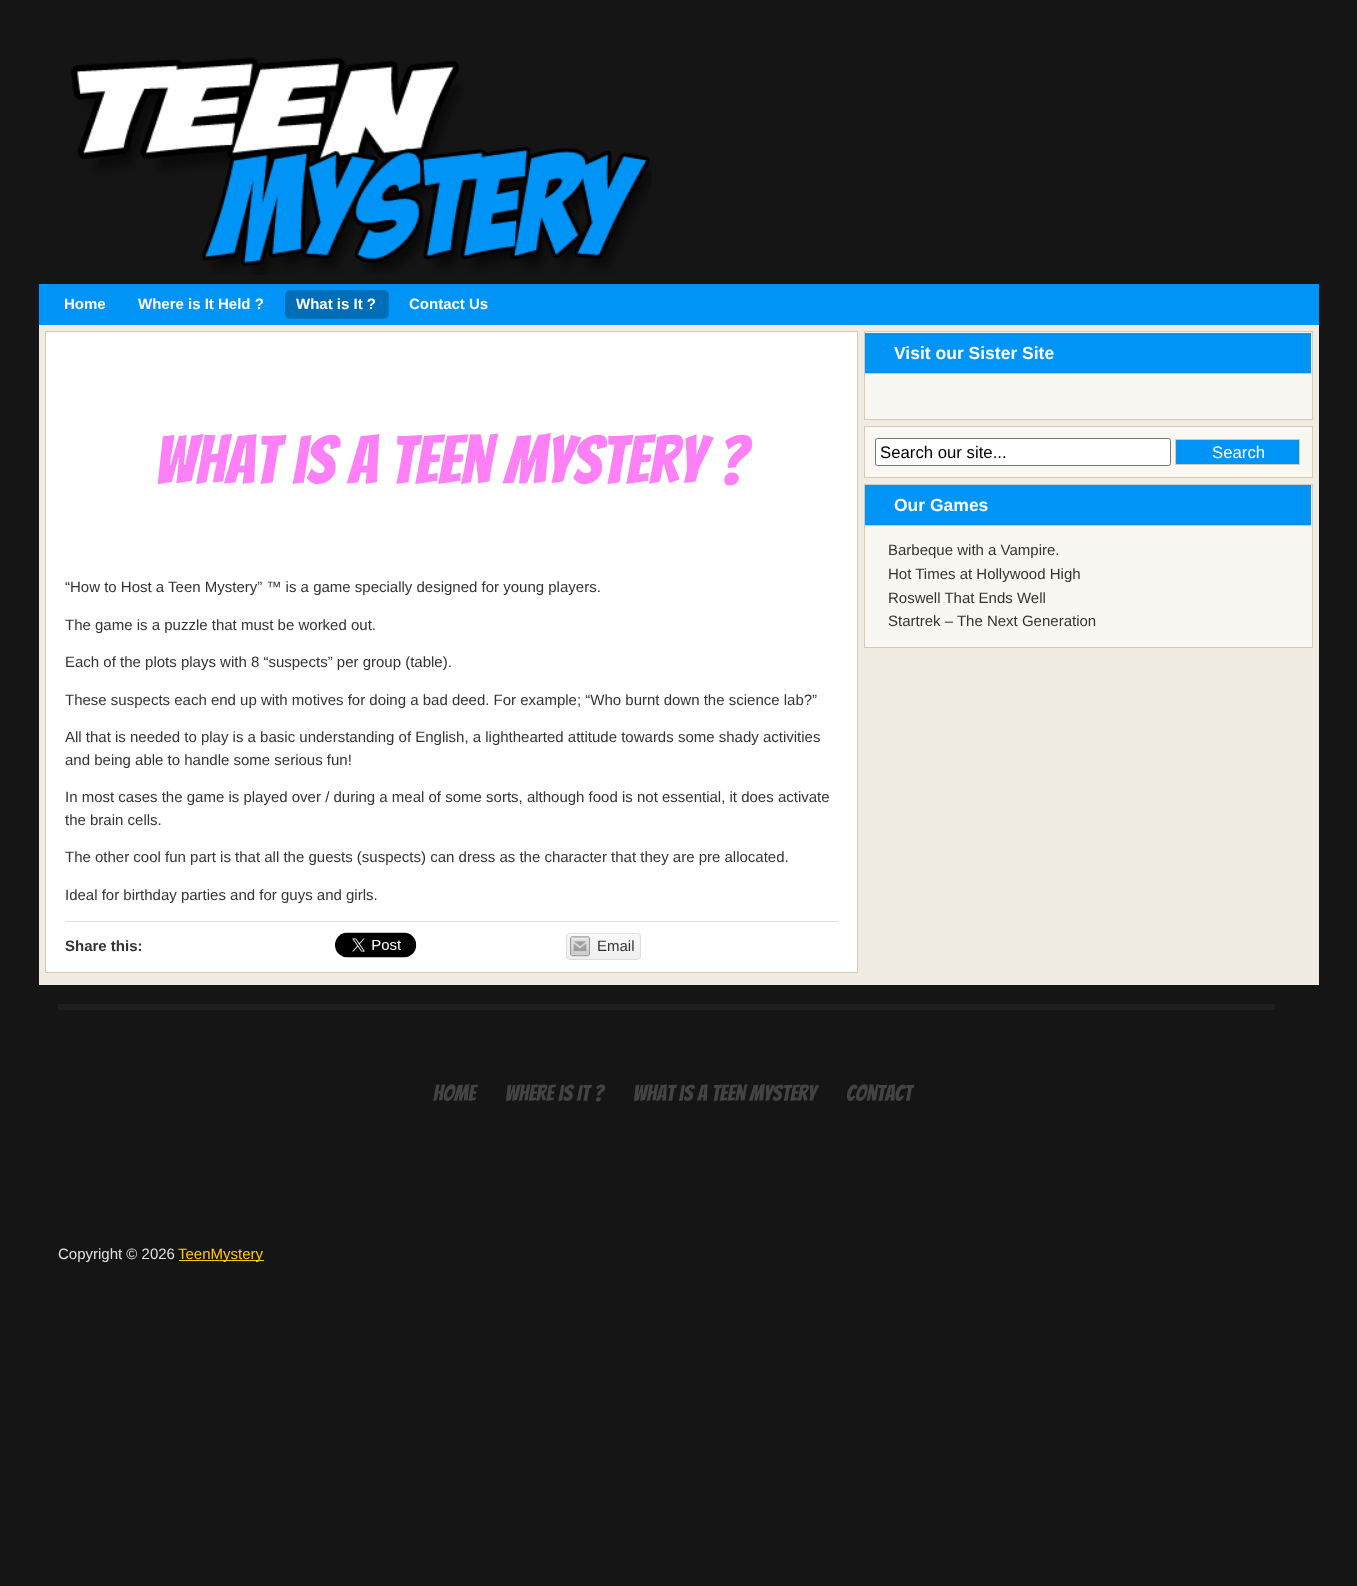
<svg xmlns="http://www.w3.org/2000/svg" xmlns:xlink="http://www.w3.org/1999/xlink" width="1357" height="1586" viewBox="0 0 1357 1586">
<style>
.cls-1{font:bold 15px Liberation Sans;fill:#ffffff}
.cls-2{font:67.5px Bangers;fill:#fe80f7}
.cls-3{font:15px Liberation Sans;fill:#333333}
.cls-4{font:bold 15px Liberation Sans;fill:#333333}
.cls-5{font:bold 17.5px Liberation Sans;fill:#ffffff}
.cls-6{font:16.75px Liberation Sans;fill:#000000}
.cls-7{font:16.75px Liberation Sans;fill:#ffffff}
.cls-8{font:22.5px Bangers;fill:#434343}
.cls-9{font:15px Liberation Sans;fill:#e0e0e0}
.cls-10{font:15px Liberation Sans;fill:#ffcc00}
</style>
<defs>
<clipPath id="clip1"><rect x="566" y="933" width="75" height="27" rx="4"/></clipPath>
<linearGradient id="g1" gradientUnits="userSpaceOnUse" x1="604" y1="934" x2="604" y2="959"><stop offset="0" stop-color="#f7f7f7"/><stop offset="1" stop-color="#efefef"/></linearGradient>
</defs>
<rect width="100%" height="100%" fill="#151515"/>
<image xlink:href="image0.png" x="71" y="57" width="581" height="218"/>
<rect fill="#0094f7" x="39" y="284" width="1280" height="41"/>
<image xlink:href="image1.png" x="285" y="290" width="10" height="29"/>
<image xlink:href="image2.png" x="295" y="290" width="94" height="29"/>
<rect fill="#f0ebe3" x="39" y="325" width="1280" height="660"/>
<rect fill="#ffffff" stroke="#d7cab5" x="45.5" y="331.5" width="812" height="641"/>
<rect fill="#dedede" x="65" y="921" width="773" height="1"/>
<image xlink:href="image3.png" x="335" y="932" width="82" height="26"/>
<g clip-path="url(#clip1)">
<rect fill="url(#g1)" x="566" y="934" width="75" height="25"/>
</g>
<path fill="#ffffff" d="M570 935H638C639 935 640 936 640 938C640 931 632 934 626 934H582C576 934 568 931 568 938C568 936 569 935 570 935Z"/>
<rect fill="none" stroke="#dddddd" x="566.5" y="933.5" width="74" height="26" rx="3.5"/>
<image xlink:href="image4.png" x="570" y="936" width="20" height="21"/>
<rect fill="#f9f7f2" stroke="#d7cab5" x="864.5" y="331.5" width="448" height="88"/>
<rect fill="#0094f7" x="865" y="333" width="446" height="40"/>
<rect fill="#d7cab5" x="865" y="373" width="446" height="1"/>
<rect fill="#f9f7f2" stroke="#d7cab5" x="864.5" y="426.5" width="448" height="51"/>
<rect fill="#ffffff" stroke="#767676" x="875.5" y="438.5" width="295" height="27" rx="2"/>
<rect fill="#0094f7" stroke="#d7cab5" x="1175.5" y="439.5" width="124" height="25"/>
<rect fill="#f9f7f2" stroke="#d7cab5" x="864.5" y="484.5" width="448" height="163"/>
<rect fill="#0094f7" x="865" y="485" width="446" height="40"/>
<rect fill="#d7cab5" x="865" y="525" width="446" height="1"/>
<rect fill="#1f1f1f" x="58" y="1004" width="1217" height="6"/>
<rect fill="#ffcc00" x="179" y="1260" width="85" height="1"/>
<text class="cls-1" x="64" y="309">Home</text>
<text class="cls-1" x="138" y="309">Where is It Held ?</text>
<text class="cls-1" x="296" y="309">What is It ?</text>
<text class="cls-1" x="409" y="309">Contact Us</text>
<text class="cls-2" x="155" y="484">What is a Teen Mystery ?</text>
<text class="cls-3" x="65" y="592">“How to Host a Teen Mystery” ™ is a game specially designed for young players.</text>
<text class="cls-3" x="65" y="630">The game is a puzzle that must be worked out.</text>
<text class="cls-3" x="65" y="667">Each of the plots plays with 8 “suspects” per group (table).</text>
<text class="cls-3" x="65" y="705">These suspects each end up with motives for doing a bad deed. For example; “Who burnt down the science lab?”</text>
<text class="cls-3"><tspan x="65" y="742">All that is needed to play is a basic understanding of English, a lighthearted attitude towards some shady activities</tspan><tspan x="65" y="765">and being able to handle some serious fun!</tspan></text>
<text class="cls-3"><tspan x="65" y="802">In most cases the game is played over / during a meal of some sorts, although food is not essential, it does activate</tspan><tspan x="65" y="825">the brain cells.</tspan></text>
<text class="cls-3" x="65" y="862">The other cool fun part is that all the guests (suspects) can dress as the character that they are pre allocated.</text>
<text class="cls-3" x="65" y="900">Ideal for birthday parties and for guys and girls.</text>
<text class="cls-4" x="65" y="951">Share this:</text>
<text class="cls-3" x="597" y="951">Email</text>
<text class="cls-5" x="894" y="359">Visit our Sister Site</text>
<text class="cls-6" x="880" y="458">Search our site...</text>
<text class="cls-7" x="1212" y="458">Search</text>
<text class="cls-5" x="894" y="511">Our Games</text>
<text class="cls-3"><tspan x="888" y="555">Barbeque with a Vampire.</tspan><tspan x="888" y="579">Hot Times at Hollywood High</tspan><tspan x="888" y="603">Roswell That Ends Well</tspan><tspan x="888" y="626">Startrek – The Next Generation</tspan></text>
<text class="cls-8" x="433" y="1101">Home</text>
<text class="cls-8" x="505" y="1101">Where is It ?</text>
<text class="cls-8" x="633" y="1101">What is a Teen Mystery</text>
<text class="cls-8" x="846" y="1101">Contact</text>
<text class="cls-9" x="58" y="1259">Copyright © 2026</text>
<text class="cls-10" x="178" y="1259">TeenMystery</text>
</svg>
